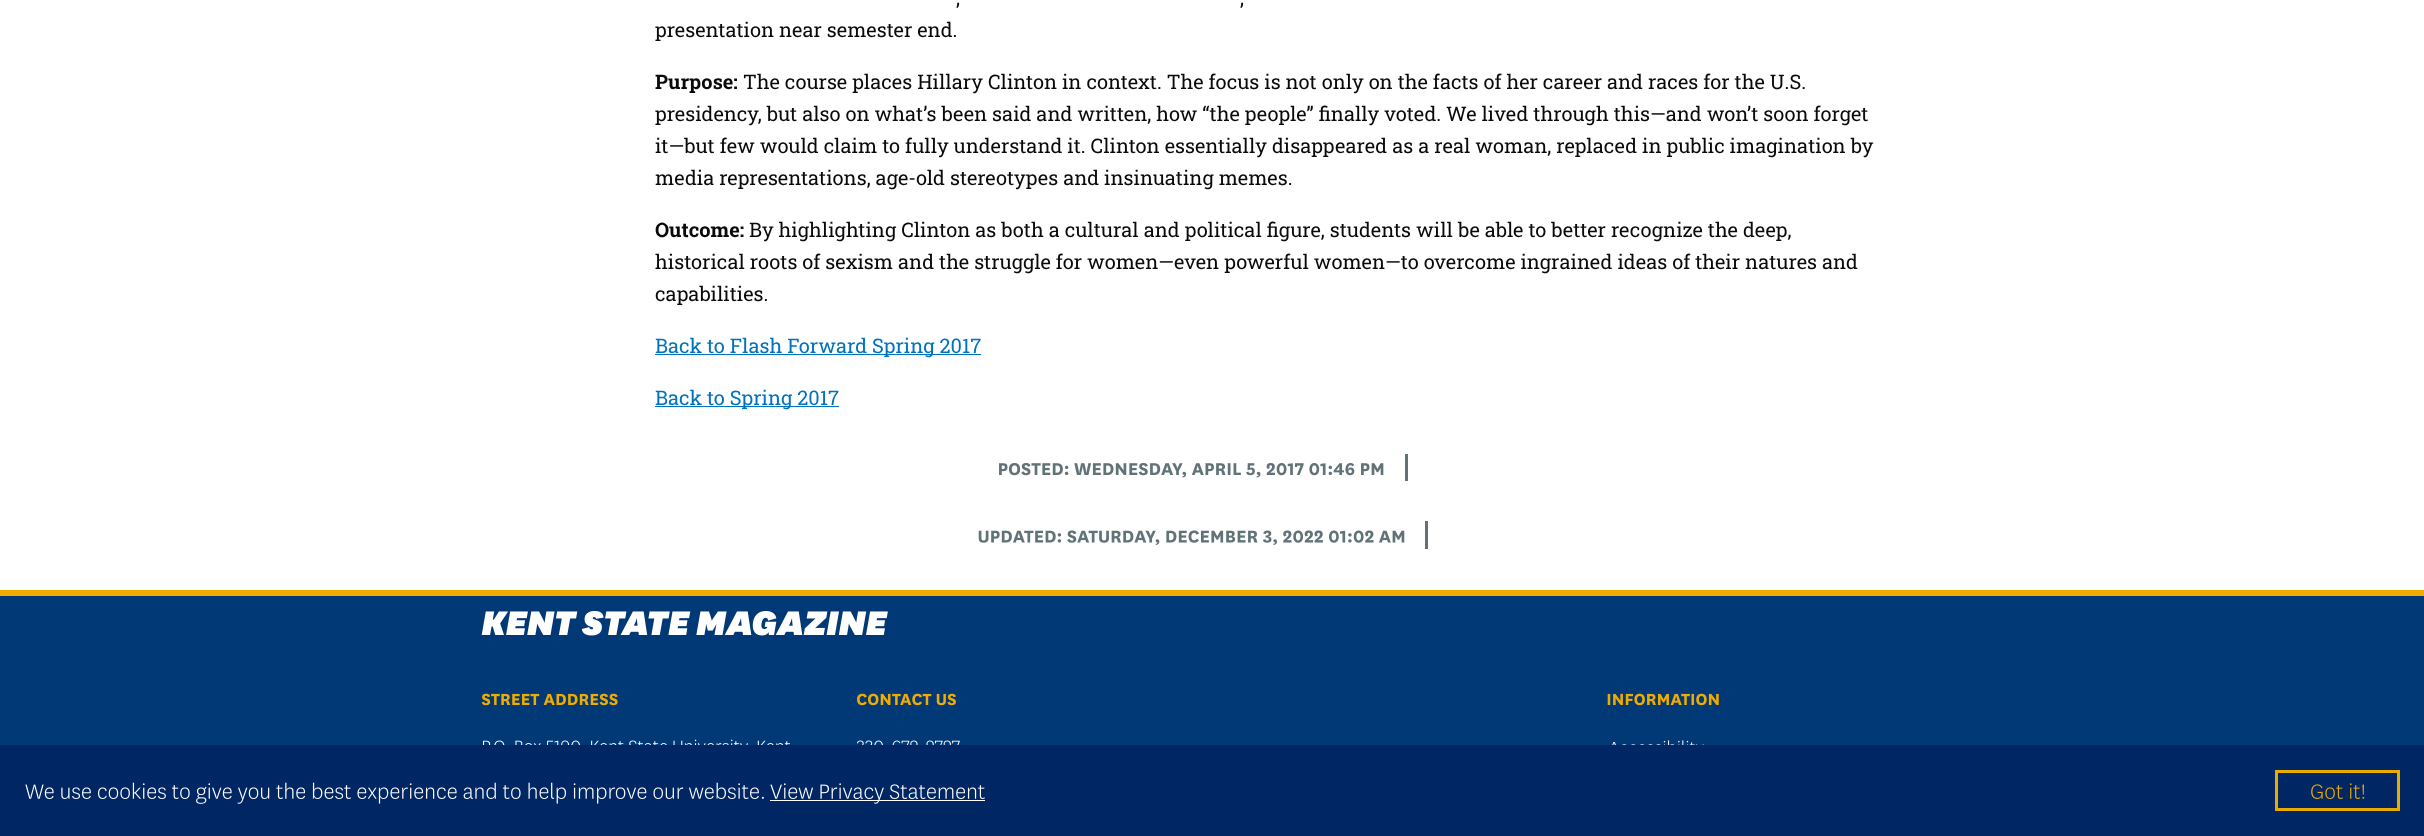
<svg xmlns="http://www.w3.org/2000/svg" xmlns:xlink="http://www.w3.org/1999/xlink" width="2424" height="836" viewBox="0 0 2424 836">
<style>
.cls-1{font:20px Roboto Slab;fill:#0a0a0a}
.cls-2{font:bold 20px Roboto Slab;fill:#0a0a0a}
.cls-3{font:20px Roboto Slab;fill:#0073bd}
</style>
<rect width="100%" height="100%" fill="#ffffff"/>
<rect fill="#0073bd" x="655" y="354" width="326" height="1"/>
<rect fill="#0073bd" x="655" y="406" width="184" height="1"/>
<rect fill="#627378" x="1405" y="454" width="3" height="27"/>
<image xlink:href="image0.png" x="999" y="463" width="385" height="15"/>
<rect fill="#627378" x="1425" y="521" width="3" height="28"/>
<image xlink:href="image1.png" x="978" y="530" width="427" height="15"/>
<rect fill="#003976" x="0" y="596" width="2424" height="149"/>
<rect fill="#efab00" x="0" y="590" width="2424" height="6"/>
<image xlink:href="image2.png" x="481" y="611" width="407" height="25"/>
<image xlink:href="image3.png" x="481" y="693" width="137" height="13"/>
<image xlink:href="image4.png" x="483" y="739" width="308" height="6"/>
<image xlink:href="image5.png" x="857" y="693" width="99" height="13"/>
<image xlink:href="image6.png" x="857" y="740" width="103" height="5"/>
<image xlink:href="image7.png" x="1607" y="693" width="112" height="13"/>
<image xlink:href="image8.png" x="1612" y="740" width="92" height="5"/>
<rect fill="#002664" x="0" y="745" width="2424" height="91"/>
<image xlink:href="image9.png" x="25" y="782" width="739" height="22"/>
<rect fill="#ffffff" x="770" y="800" width="215" height="1"/>
<image xlink:href="image10.png" x="770" y="783" width="215" height="21"/>
<rect fill="none" stroke="#eaab00" stroke-width="3" x="2276.5" y="771.5" width="122" height="38"/>
<image xlink:href="image11.png" x="2311" y="783" width="54" height="16"/>
<text class="cls-1" x="956" y="5">,</text>
<text class="cls-1" x="1240" y="5">,</text>
<text class="cls-1" x="655" y="37">presentation near semester end.</text>
<text class="cls-2" x="655" y="89">Purpose:</text>
<text class="cls-1" x="743" y="89">The course places Hillary Clinton in context. The focus is not only on the facts of her career and races for the U.S.</text>
<text class="cls-1"><tspan x="655" y="121">presidency, but also on what’s been said and written, how “the people” finally voted. We lived through this—and won’t soon forget</tspan><tspan x="655" y="153">it—but few would claim to fully understand it. Clinton essentially disappeared as a real woman, replaced in public imagination by</tspan><tspan x="655" y="185">media representations, age-old stereotypes and insinuating memes.</tspan></text>
<text class="cls-2" x="655" y="237">Outcome:</text>
<text class="cls-1" x="749" y="237">By highlighting Clinton as both a cultural and political figure, students will be able to better recognize the deep,</text>
<text class="cls-1"><tspan x="655" y="269">historical roots of sexism and the struggle for women—even powerful women—to overcome ingrained ideas of their natures and</tspan><tspan x="655" y="301">capabilities.</tspan></text>
<text class="cls-3" x="655" y="353">Back to Flash Forward Spring 2017</text>
<text class="cls-3" x="655" y="405">Back to Spring 2017</text>
</svg>
